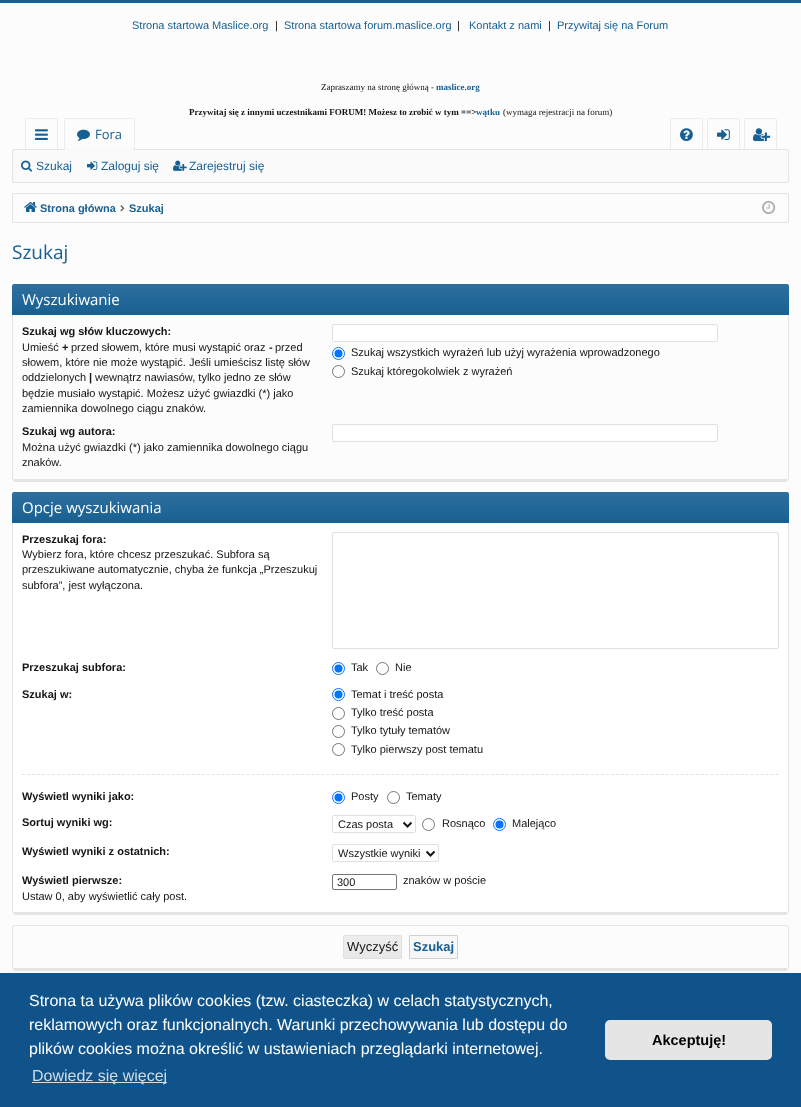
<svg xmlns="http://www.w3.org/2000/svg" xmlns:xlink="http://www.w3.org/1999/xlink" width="801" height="1107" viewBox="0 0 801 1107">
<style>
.cls-1{font:11px Liberation Sans;fill:#176093}
.cls-2{font:11px Liberation Sans;fill:#141414}
.cls-3{font:bold 9px Liberation Serif;fill:#176093}
.cls-4{font:bold 9px Liberation Serif;fill:#141414}
.cls-5{font:9px Liberation Serif;fill:#141414}
.cls-6{font:13px Open Sans;fill:#176093}
.cls-7{font:12px Liberation Sans;fill:#176093}
.cls-8{font:bold 11px Liberation Sans;fill:#176093}
.cls-9{font:19px Open Sans;fill:#176093}
.cls-10{font:15px Open Sans;fill:#ffffff}
.cls-11{font:bold 11px Liberation Sans;fill:#141414}
.cls-12{font:13px Liberation Sans;fill:#141414}
.cls-13{font:bold 13px Liberation Sans;fill:#176093}
.cls-14{font:16px Liberation Sans;fill:#ffffff}
.cls-15{font:16px Liberation Sans;fill:#cfdde8}
.cls-16{font:bold 14.5px Liberation Sans;fill:#000000}
</style>
<defs>
<linearGradient id="g1" gradientUnits="userSpaceOnUse" x1="401" y1="284" x2="401" y2="315"><stop offset="0" stop-color="#ffffff" stop-opacity="0.1"/><stop offset="1" stop-color="#ffffff" stop-opacity="0"/></linearGradient>
<linearGradient id="g2" gradientUnits="userSpaceOnUse" x1="401" y1="492" x2="401" y2="523"><stop offset="0" stop-color="#ffffff" stop-opacity="0.1"/><stop offset="1" stop-color="#ffffff" stop-opacity="0"/></linearGradient>
<linearGradient id="g3" gradientUnits="userSpaceOnUse" x1="373" y1="936" x2="373" y2="958"><stop offset="0" stop-color="#ededed"/><stop offset="1" stop-color="#e8e8e8"/></linearGradient>
<linearGradient id="g4" gradientUnits="userSpaceOnUse" x1="434" y1="936" x2="434" y2="958"><stop offset="0" stop-color="#f8f8f8"/><stop offset="1" stop-color="#f6f6f6"/></linearGradient>
</defs>
<rect width="100%" height="100%" fill="#fcfcfc"/>
<rect fill="#176093" x="0" y="0" width="801" height="3"/>
<rect fill="#ebebeb" x="26" y="118" width="31" height="1"/>
<rect fill="#ebebeb" x="57" y="119" width="1" height="31"/>
<rect fill="#ebebeb" x="25" y="119" width="1" height="31"/>
<image xlink:href="image0.png" x="35" y="129" width="13" height="11"/>
<rect fill="#ebebeb" x="65" y="118" width="69" height="1"/>
<rect fill="#ebebeb" x="134" y="119" width="1" height="31"/>
<rect fill="#ebebeb" x="64" y="119" width="1" height="31"/>
<image xlink:href="image1.png" x="77" y="129" width="13" height="12"/>
<rect fill="#ebebeb" x="702" y="119" width="1" height="31"/>
<rect fill="#ebebeb" x="670" y="119" width="1" height="31"/>
<rect fill="#ebebeb" x="739" y="119" width="1" height="31"/>
<rect fill="#ebebeb" x="707" y="119" width="1" height="31"/>
<rect fill="#ebebeb" x="776" y="119" width="1" height="31"/>
<rect fill="#ebebeb" x="744" y="119" width="1" height="31"/>
<rect fill="#fafafa" stroke="#e4e4e4" x="12.5" y="149.5" width="776" height="33" rx="1.5"/>
<path fill="#fafafa" d="M67 148H132C133 148 134 149 134 150V152H65V150C65 149 66 148 67 148Z"/>
<rect fill="#ebebeb" x="671" y="118" width="31" height="1"/>
<image xlink:href="image2.png" x="680" y="128" width="13" height="14"/>
<rect fill="#ebebeb" x="708" y="118" width="31" height="1"/>
<image xlink:href="image3.png" x="717" y="129" width="13" height="11"/>
<rect fill="#ebebeb" x="745" y="118" width="31" height="1"/>
<image xlink:href="image4.png" x="753" y="128" width="18" height="14"/>
<image xlink:href="image5.png" x="21" y="160" width="12" height="12"/>
<image xlink:href="image6.png" x="87" y="161" width="11" height="9"/>
<image xlink:href="image7.png" x="173" y="160" width="14" height="11"/>
<rect fill="none" stroke="#e4e4e4" x="12.5" y="193.5" width="776" height="29" rx="1.5"/>
<image xlink:href="image8.png" x="24" y="202" width="13" height="10"/>
<image xlink:href="image9.png" x="120" y="205" width="5" height="7"/>
<image xlink:href="image10.png" x="762" y="200" width="14" height="15"/>
<path fill="none" stroke="#e4e4e4" d="M14 284.5H787C788 284.5 788.5 285 788.5 286V478C788.5 480 787 481.5 785 481.5H16C14 481.5 12.5 480 12.5 478V286C12.5 285 13 284.5 14 284.5Z"/>
<rect fill="#e4e4e4" x="14" y="479" width="773" height="2"/>
<path fill="#176093" d="M14 284H787C788 284 789 285 789 286V315H12V286C12 285 13 284 14 284Z"/>
<path fill="url(#g1)" d="M14 284H787C788 284 789 285 789 286V315H12V286C12 285 13 284 14 284Z"/>
<rect fill="#ffffff" stroke="#e0e0e0" x="332.5" y="324.5" width="385" height="17" rx="1.5"/>
<circle fill="#ffffff" stroke="#0075ff" cx="338.5" cy="353.5" r="6"/>
<circle fill="#0075ff" cx="338.5" cy="353.5" r="4"/>
<circle fill="#ffffff" stroke="#767676" cx="338.5" cy="371.5" r="6"/>
<rect fill="#ffffff" stroke="#e0e0e0" x="332.5" y="424.5" width="385" height="17" rx="1.5"/>
<path fill="#ffffff" d="M14 493H787C788 493 788 493 788 494V911C788 912 787 912 785 912H16C14 912 13 912 13 911V494C13 493 13 493 14 493Z"/>
<path fill="none" stroke="#e4e4e4" d="M14 492.5H787C788 492.5 788.5 493 788.5 494V911C788.5 913 787 914.5 785 914.5H16C14 914.5 12.5 913 12.5 911V494C12.5 493 13 492.5 14 492.5Z"/>
<rect fill="#e4e4e4" x="14" y="912" width="773" height="2"/>
<path fill="#176093" d="M14 492H787C788 492 789 493 789 494V523H12V494C12 493 13 492 14 492Z"/>
<path fill="url(#g2)" d="M14 492H787C788 492 789 493 789 494V523H12V494C12 493 13 492 14 492Z"/>
<rect fill="none" stroke="#e0e0e0" x="332.5" y="532.5" width="446" height="116" rx="1.5"/>
<circle fill="none" stroke="#0075ff" cx="338.5" cy="668.5" r="6"/>
<circle fill="#0075ff" cx="338.5" cy="668.5" r="4"/>
<circle fill="none" stroke="#767676" cx="382.5" cy="668.5" r="6"/>
<circle fill="none" stroke="#0075ff" cx="338.5" cy="694.5" r="6"/>
<circle fill="#0075ff" cx="338.5" cy="694.5" r="4"/>
<circle fill="none" stroke="#767676" cx="338.5" cy="713.5" r="6"/>
<circle fill="none" stroke="#767676" cx="338.5" cy="731.5" r="6"/>
<circle fill="none" stroke="#767676" cx="338.5" cy="749.5" r="6"/>
<path fill="none" stroke="#e3e3e3" stroke-dasharray="3 1.99" d="M22 774.5H779"/>
<circle fill="none" stroke="#0075ff" cx="338.5" cy="797.5" r="6"/>
<circle fill="#0075ff" cx="338.5" cy="797.5" r="4"/>
<circle fill="none" stroke="#767676" cx="393.5" cy="797.5" r="6"/>
<rect fill="none" stroke="#e0e0e0" x="332.5" y="815.5" width="83" height="17" rx="1.5"/>
<path fill="none" stroke="#141414" stroke-width="2" d="M403.5 822.5L407.5 826.5L411.5 822.5"/>
<circle fill="none" stroke="#767676" cx="428.5" cy="824.5" r="6"/>
<circle fill="none" stroke="#0075ff" cx="499.5" cy="824.5" r="6"/>
<circle fill="#0075ff" cx="499.5" cy="824.5" r="4"/>
<rect fill="none" stroke="#e0e0e0" x="332.5" y="844.5" width="106" height="17" rx="1.5"/>
<path fill="none" stroke="#141414" stroke-width="2" d="M426.5 851.5L430.5 855.5L434.5 851.5"/>
<rect fill="none" stroke="#767676" x="332.5" y="874.5" width="64" height="15" rx="1.5"/>
<path fill="none" stroke="#e4e4e4" d="M14 925.5H787C788 925.5 788.5 926 788.5 927V967C788.5 969 787 970.5 785 970.5H16C14 970.5 12.5 969 12.5 967V927C12.5 926 13 925.5 14 925.5Z"/>
<rect fill="#e4e4e4" x="14" y="968" width="773" height="2"/>
<rect fill="url(#g3)" x="344" y="936" width="57" height="22"/>
<rect fill="none" stroke="#e0e0e0" x="343.5" y="935.5" width="58" height="23" rx="0.5"/>
<rect fill="url(#g4)" x="410" y="936" width="47" height="22"/>
<rect fill="none" stroke="#d0d0d0" x="409.5" y="935.5" width="48" height="23" rx="0.5"/>
<rect fill="#0f538a" x="0" y="973" width="801" height="134"/>
<rect fill="#cfdde8" x="32" y="1082" width="135" height="1"/>
<rect fill="#e5e5e5" x="605" y="1020" width="167" height="40" rx="5"/>
<text class="cls-1" x="132" y="29">Strona startowa Maslice.org</text>
<text class="cls-2" x="275" y="29">|</text>
<text class="cls-1" x="284" y="29">Strona startowa forum.maslice.org</text>
<text class="cls-2" x="457" y="29">|</text>
<text class="cls-1" x="469" y="29">Kontakt z nami</text>
<text class="cls-2" x="548" y="29">|</text>
<text class="cls-1" x="557" y="29">Przywitaj się na Forum</text>
<text class="cls-3" x="436" y="90">maslice.org</text>
<text class="cls-4" x="189" y="115">Przywitaj się z innymi uczestnikami FORUM! Możesz to zrobić w tym ==&gt;</text>
<text class="cls-3" x="476" y="115">wątku</text>
<text class="cls-5" x="321" y="90">Zapraszamy na stronę główną -</text>
<text class="cls-5" x="503" y="115">(wymaga rejestracji na forum)</text>
<text class="cls-6" x="95" y="139">Fora</text>
<text class="cls-7" x="36" y="170">Szukaj</text>
<text class="cls-7" x="101" y="170">Zaloguj się</text>
<text class="cls-7" x="189" y="170">Zarejestruj się</text>
<text class="cls-8" x="40" y="212">Strona główna</text>
<text class="cls-8" x="129" y="212">Szukaj</text>
<text class="cls-9" x="12" y="259">Szukaj</text>
<text class="cls-10" x="22" y="305">Wyszukiwanie</text>
<text class="cls-11" x="22" y="335">Szukaj wg słów kluczowych:</text>
<text class="cls-2" x="22" y="351">Umieść</text>
<text class="cls-11" x="62" y="351">+</text>
<text class="cls-2" x="71" y="351">przed słowem, które musi wystąpić oraz</text>
<text class="cls-11" x="269" y="351">-</text>
<text class="cls-2" x="275" y="351">przed</text>
<text class="cls-2"><tspan x="22" y="366">słowem, które nie może wystąpić. Jeśli umieścisz listę słów</tspan><tspan x="22" y="381">oddzielonych</tspan></text>
<text class="cls-11" x="89" y="381">|</text>
<text class="cls-2" x="95" y="381">wewnątrz nawiasów, tylko jedno ze słów</text>
<text class="cls-2"><tspan x="22" y="397">będzie musiało wystąpić. Możesz użyć gwiazdki (*) jako</tspan><tspan x="22" y="412">zamiennika dowolnego ciągu znaków.</tspan></text>
<text class="cls-2"><tspan x="351" y="356">Szukaj wszystkich wyrażeń lub użyj wyrażenia wprowadzonego</tspan><tspan x="351" y="375">Szukaj któregokolwiek z wyrażeń</tspan></text>
<text class="cls-11" x="22" y="435">Szukaj wg autora:</text>
<text class="cls-2"><tspan x="22" y="451">Można użyć gwiazdki (*) jako zamiennika dowolnego ciągu</tspan><tspan x="22" y="466">znaków.</tspan></text>
<text class="cls-10" x="22" y="513">Opcje wyszukiwania</text>
<text class="cls-11" x="22" y="543">Przeszukaj fora:</text>
<text class="cls-2"><tspan x="22" y="558">Wybierz fora, które chcesz przeszukać. Subfora są</tspan><tspan x="22" y="573">przeszukiwane automatycznie, chyba że funkcja „Przeszukuj</tspan><tspan x="22" y="589">subfora”, jest wyłączona.</tspan></text>
<text class="cls-11" x="22" y="671">Przeszukaj subfora:</text>
<text class="cls-2" x="351" y="671">Tak</text>
<text class="cls-2" x="395" y="671">Nie</text>
<text class="cls-11" x="22" y="698">Szukaj w:</text>
<text class="cls-2"><tspan x="351" y="698">Temat i treść posta</tspan><tspan x="351" y="716">Tylko treść posta</tspan><tspan x="351" y="734">Tylko tytuły tematów</tspan><tspan x="351" y="753">Tylko pierwszy post tematu</tspan></text>
<text class="cls-11" x="22" y="800">Wyświetl wyniki jako:</text>
<text class="cls-2" x="351" y="800">Posty</text>
<text class="cls-2" x="406" y="800">Tematy</text>
<text class="cls-11" x="22" y="826">Sortuj wyniki wg:</text>
<text class="cls-2" x="338" y="828">Czas posta</text>
<text class="cls-2" x="442" y="827">Rosnąco</text>
<text class="cls-2" x="512" y="827">Malejąco</text>
<text class="cls-11" x="22" y="855">Wyświetl wyniki z ostatnich:</text>
<text class="cls-2" x="338" y="857">Wszystkie wyniki</text>
<text class="cls-11" x="22" y="884">Wyświetl pierwsze:</text>
<text class="cls-2" x="22" y="900">Ustaw 0, aby wyświetlić cały post.</text>
<text class="cls-2" x="337" y="886">300</text>
<text class="cls-2" x="403" y="884">znaków w poście</text>
<text class="cls-12" x="347" y="951">Wyczyść</text>
<text class="cls-13" x="413" y="951">Szukaj</text>
<text class="cls-14"><tspan x="29" y="1006">Strona ta używa plików cookies (tzw. ciasteczka) w celach statystycznych,</tspan><tspan x="29" y="1030">reklamowych oraz funkcjonalnych. Warunki przechowywania lub dostępu do</tspan><tspan x="29" y="1054">plików cookies można określić w ustawieniach przeglądarki internetowej.</tspan></text>
<text class="cls-15" x="32" y="1081">Dowiedz się więcej</text>
<text class="cls-16" x="652" y="1045">Akceptuję!</text>
</svg>
